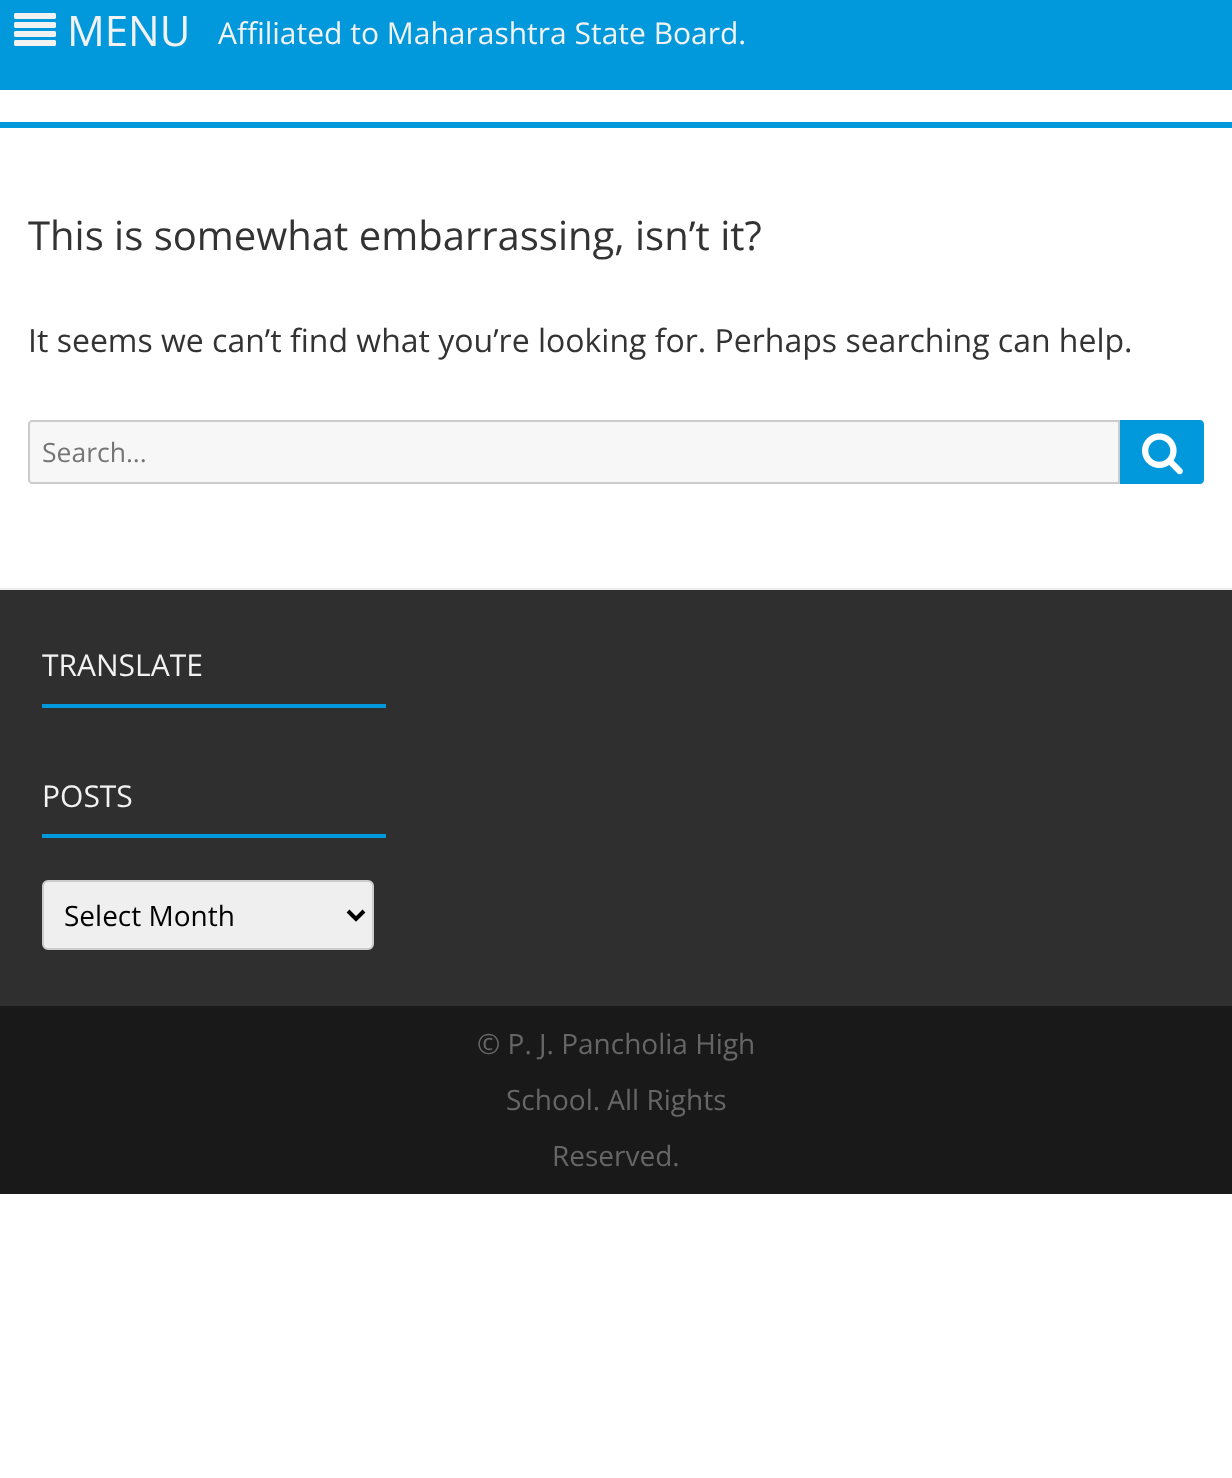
<svg xmlns="http://www.w3.org/2000/svg" xmlns:xlink="http://www.w3.org/1999/xlink" width="1232" height="1478" viewBox="0 0 1232 1478">
<style>
.cls-1{font:42px Open Sans;fill:#f2f2f2}
.cls-2{font:30px Open Sans;fill:#f2f2f2}
.cls-3{font:40px Open Sans;fill:#333333}
.cls-4{font:32px Open Sans;fill:#333333}
.cls-5{font:26.5px Open Sans;fill:#757575}
.cls-6{font:28px Open Sans;fill:#000000}
.cls-7{font:28px Open Sans;fill:#666666}
</style>
<rect width="100%" height="100%" fill="#ffffff"/>
<rect fill="#0199db" x="0" y="0" width="1232" height="90"/>
<image xlink:href="image0.png" x="14" y="13" width="42" height="33"/>
<rect fill="#0199db" x="0" y="122" width="1232" height="6"/>
<path fill="#f7f7f7" stroke="#cccccc" stroke-width="2" d="M32 421H1119V483H32C30.5 483 29 481.5 29 480V424C29 422.5 30.5 421 32 421Z"/>
<path fill="#0199db" d="M1120 420H1200C1202 420 1204 422 1204 424V480C1204 482 1202 484 1200 484H1120Z"/>
<image xlink:href="image1.png" x="1142" y="433" width="41" height="42"/>
<rect fill="#191919" x="0" y="1006" width="1232" height="188"/>
<rect fill="#ededed" x="0" y="588" width="1232" height="2"/>
<rect fill="#2f2f2f" x="0" y="590" width="1232" height="416"/>
<rect fill="#0199db" x="42" y="704" width="344" height="4"/>
<rect fill="#0199db" x="42" y="834" width="344" height="4"/>
<rect fill="#efefef" stroke="#cccccc" stroke-width="2" x="43" y="881" width="330" height="68" rx="5"/>
<path fill="none" stroke="#000000" stroke-width="4" d="M348 911L356 919L364 911"/>
<text class="cls-1" x="67" y="46">MENU</text>
<text class="cls-2" x="218" y="44">Affiliated to Maharashtra State Board.</text>
<text class="cls-3" x="28" y="250">This is somewhat embarrassing, isn’t it?</text>
<text class="cls-4" x="28" y="352">It seems we can’t find what you’re looking for. Perhaps searching can help.</text>
<text class="cls-5" x="42" y="462">Search...</text>
<text class="cls-2" x="42" y="676">TRANSLATE</text>
<text class="cls-2" x="42" y="807">POSTS</text>
<text class="cls-6" x="64" y="926">Select Month</text>
<text class="cls-7" x="477" y="1054">© P. J. Pancholia High</text>
<text class="cls-7" x="506" y="1110">School. All Rights</text>
<text class="cls-7" x="552" y="1166">Reserved.</text>
</svg>
